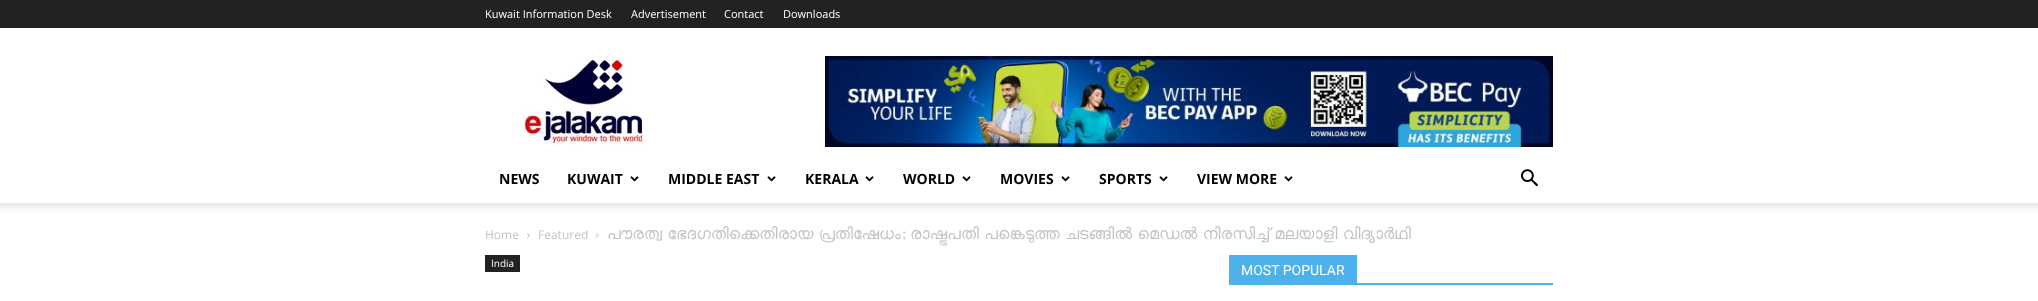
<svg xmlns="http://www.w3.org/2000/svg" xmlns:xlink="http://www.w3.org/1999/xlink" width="2038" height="301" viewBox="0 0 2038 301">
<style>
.cls-1{font:11px Open Sans;fill:#ffffff}
.cls-2{font:bold 14px Open Sans;fill:#000000}
.cls-3{font:12px Open Sans;fill:#c3c3c3}
.cls-4{font:16px FreeSans;fill:#c3c3c3}
.cls-5{font:16px Liberation Serif;fill:#c3c3c3}
.cls-6{font:10px Open Sans;fill:#ffffff}
.cls-7{font:14px Roboto;fill:#ffffff}
</style>
<rect width="100%" height="100%" fill="#ffffff"/>
<rect fill="#222222" x="0" y="0" width="2038" height="28"/>
<image xlink:href="image0.png" x="519" y="56" width="128" height="89"/>
<image xlink:href="image1.png" x="825" y="56" width="728" height="91"/>
<image xlink:href="image2.png" x="630" y="176" width="9" height="6"/>
<image xlink:href="image2.png" x="767" y="176" width="9" height="6"/>
<image xlink:href="image2.png" x="865" y="176" width="9" height="6"/>
<image xlink:href="image2.png" x="962" y="176" width="9" height="6"/>
<image xlink:href="image2.png" x="1061" y="176" width="9" height="6"/>
<image xlink:href="image2.png" x="1159" y="176" width="9" height="6"/>
<image xlink:href="image2.png" x="1284" y="176" width="9" height="6"/>
<image xlink:href="image3.png" x="1521" y="169" width="17" height="18"/>
<image xlink:href="image4.png" x="0" y="203" width="2038" height="9"/>
<image xlink:href="image5.png" x="527" y="233" width="3" height="5"/>
<image xlink:href="image5.png" x="596" y="233" width="3" height="5"/>
<rect fill="#222222" x="485" y="255" width="35" height="17"/>
<rect fill="#4db2ec" x="1229" y="283" width="324" height="2"/>
<rect fill="#4db2ec" x="1229" y="255" width="128" height="28"/>
<text class="cls-1" x="485" y="18">Kuwait Information Desk</text>
<text class="cls-1" x="631" y="18">Advertisement</text>
<text class="cls-1" x="724" y="18">Contact</text>
<text class="cls-1" x="783" y="18">Downloads</text>
<text class="cls-2" x="499" y="184">NEWS</text>
<text class="cls-2" x="567" y="184">KUWAIT</text>
<text class="cls-2" x="668" y="184">MIDDLE EAST</text>
<text class="cls-2" x="805" y="184">KERALA</text>
<text class="cls-2" x="903" y="184">WORLD</text>
<text class="cls-2" x="1000" y="184">MOVIES</text>
<text class="cls-2" x="1099" y="184">SPORTS</text>
<text class="cls-2" x="1197" y="184">VIEW MORE</text>
<text class="cls-3" x="485" y="239">Home</text>
<text class="cls-3" x="538" y="239">Featured</text>
<text class="cls-4" x="607" y="239" word-spacing="-1">പൗരത്വ ഭേദഗതിക്കെതിരായ പ്രതിഷേധം</text>
<text class="cls-5" x="902" y="239">:</text>
<text class="cls-4" x="910" y="239" word-spacing="-1">രാഷ്ട്രപതി പങ്കെടുത്ത ചടങ്ങിൽ മെഡൽ നിരസിച്ച് മലയാളി വിദ്യാർഥി</text>
<text class="cls-6" x="491" y="267">India</text>
<text class="cls-7" x="1241" y="275">MOST POPULAR</text>
</svg>
